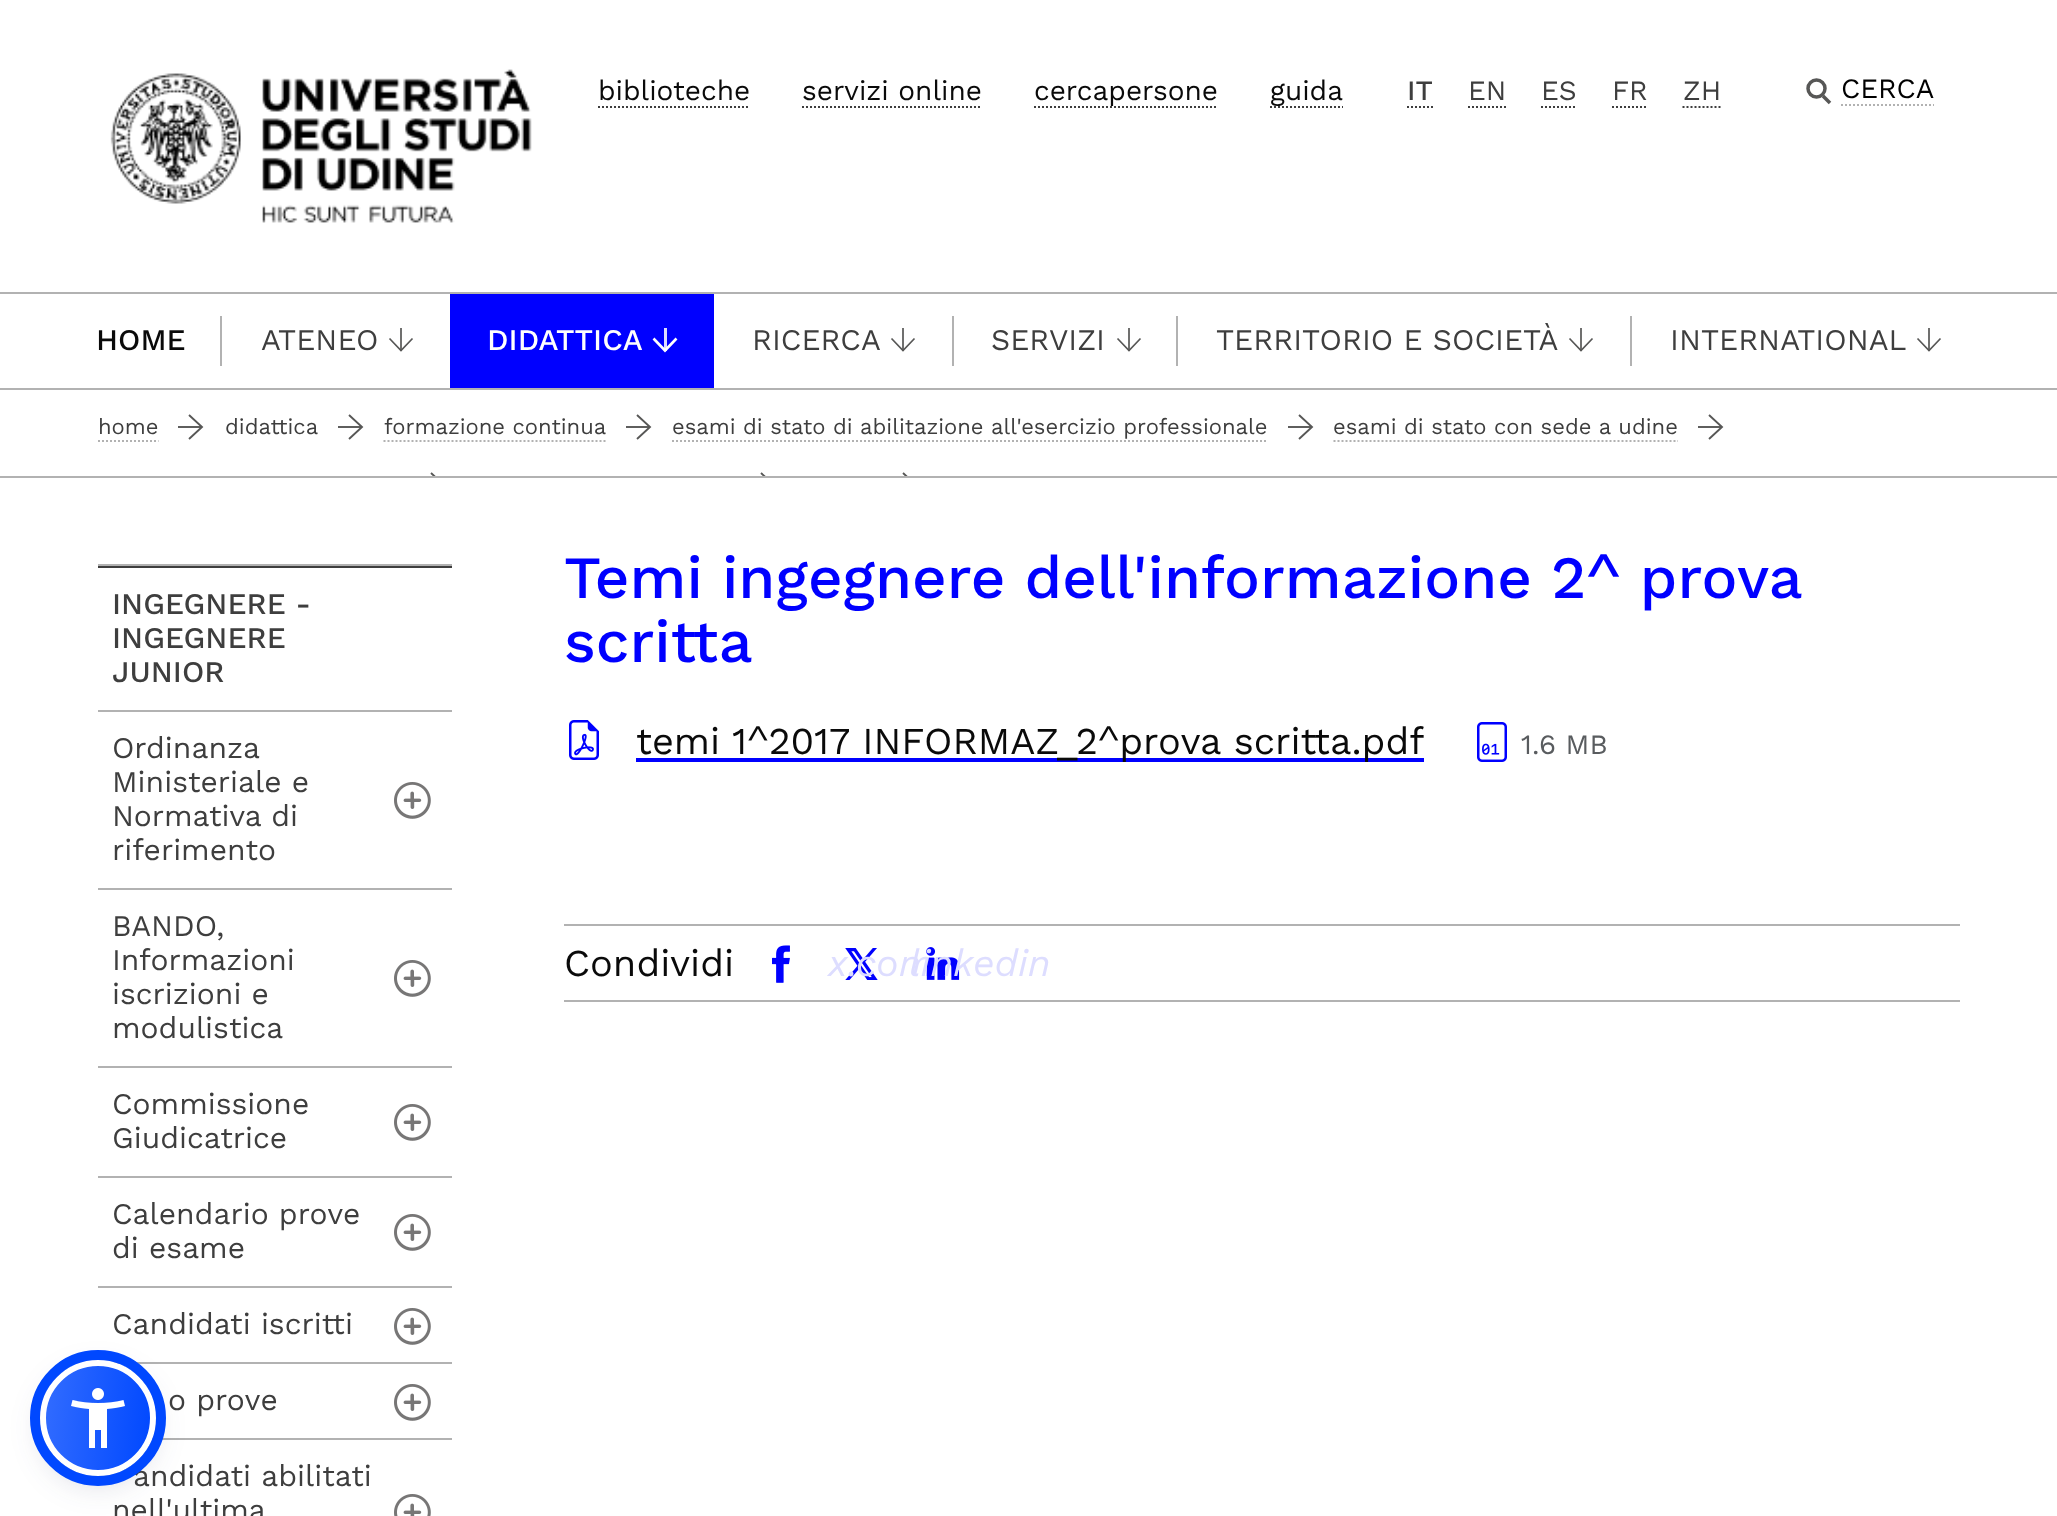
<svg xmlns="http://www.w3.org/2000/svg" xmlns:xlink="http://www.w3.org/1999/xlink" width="2057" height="1516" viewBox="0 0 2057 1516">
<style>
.cls-1{font:28px Work Sans;fill:#0a0a0a}
.cls-2{font:500 28px Work Sans;fill:#3e3e3e}
.cls-3{font:28px Work Sans;fill:#3e3e3e}
.cls-4{font:28px Work Sans;fill:#000000}
.cls-5{font:500 30px Work Sans;fill:#0a0a0a}
.cls-6{font:30px Work Sans;fill:#3e3e3e}
.cls-7{font:500 30px Work Sans;fill:#fefefe}
.cls-8{font:22px Work Sans;fill:#3e3e3e}
.cls-9{font:500 30px Work Sans;fill:#3e3e3e}
.cls-10{font:500 60px Work Sans;fill:#0000ff}
.cls-11{font:38px Work Sans;fill:#0a0a0a}
.cls-12{font:28px Work Sans;fill:#595c5f}
.cls-13{font:italic 38px Work Sans;fill:#ddddff}
</style>
<defs>
<clipPath id="clip1"><rect x="420" y="470" width="26" height="6"/></clipPath>
<clipPath id="clip2"><rect x="750" y="470" width="26" height="6"/></clipPath>
<clipPath id="clip3"><rect x="892" y="470" width="26" height="6"/></clipPath>
<clipPath id="clip4"><rect x="40" y="1360" width="116" height="116" rx="58"/></clipPath>
<linearGradient id="g1" gradientUnits="userSpaceOnUse" x1="41" y1="1412" x2="155" y2="1424"><stop offset="0" stop-color="#326cff"/><stop offset="1" stop-color="#0048ff"/></linearGradient>
</defs>
<rect width="100%" height="100%" fill="#ffffff"/>
<rect fill="#b2b2b2" x="0" y="292" width="2057" height="2"/>
<image xlink:href="image0.png" x="110" y="69" width="422" height="154"/>
<path fill="none" stroke="#3e3e3e" stroke-width="2" stroke-dasharray="2 2" d="M598 107H750"/>
<path fill="none" stroke="#3e3e3e" stroke-width="2" stroke-dasharray="2 2" d="M802 107H982"/>
<path fill="none" stroke="#3e3e3e" stroke-width="2" stroke-dasharray="2 2" d="M1034 107H1218"/>
<path fill="none" stroke="#3e3e3e" stroke-width="2" stroke-dasharray="2 2" d="M1270 107H1343"/>
<path fill="none" stroke="#3e3e3e" stroke-width="2" stroke-dasharray="2 2" d="M1407 107H1433"/>
<path fill="none" stroke="#3e3e3e" stroke-width="2" stroke-dasharray="2 2" d="M1468 107H1506"/>
<path fill="none" stroke="#3e3e3e" stroke-width="2" stroke-dasharray="2 2" d="M1541 107H1577"/>
<path fill="none" stroke="#3e3e3e" stroke-width="2" stroke-dasharray="2 2" d="M1612 107H1647.5"/>
<path fill="none" stroke="#3e3e3e" stroke-width="2" stroke-dasharray="2 2" d="M1682.5 107H1721"/>
<circle fill="none" stroke="#575756" stroke-width="3.5" cx="1816.5" cy="88.5" r="8.5"/>
<path fill="none" stroke="#575756" stroke-width="3.5" d="M1823 96L1830 103"/>
<path fill="none" stroke="#b2b2b2" stroke-width="2" stroke-dasharray="2 2" d="M1841 105H1934"/>
<rect fill="#b2b2b2" x="220" y="316" width="2" height="50"/>
<rect fill="#70706f" x="400" y="328" width="2" height="23"/>
<path fill="none" stroke="#575756" stroke-width="1.7" d="M412.5 338.5L401 350.5L389.5 338.5"/>
<rect fill="#0000ff" x="450" y="294" width="264" height="94"/>
<rect fill="#ddddff" x="664" y="328" width="3" height="23"/>
<path fill="none" stroke="#ffffff" stroke-width="2.6" d="M676.5 338.5L665 350.5L653.5 338.5"/>
<rect fill="#70706f" x="902" y="328" width="2" height="23"/>
<path fill="none" stroke="#575756" stroke-width="1.7" d="M914.5 338.5L903 350.5L891.5 338.5"/>
<rect fill="#b2b2b2" x="952" y="316" width="2" height="50"/>
<rect fill="#70706f" x="1128" y="328" width="2" height="23"/>
<path fill="none" stroke="#575756" stroke-width="1.7" d="M1140.5 338.5L1129 350.5L1117.5 338.5"/>
<rect fill="#b2b2b2" x="1176" y="316" width="2" height="50"/>
<rect fill="#70706f" x="1580" y="328" width="2" height="23"/>
<path fill="none" stroke="#575756" stroke-width="1.7" d="M1592.5 338.5L1581 350.5L1569.5 338.5"/>
<rect fill="#b2b2b2" x="1630" y="316" width="2" height="50"/>
<rect fill="#70706f" x="1928" y="328" width="2" height="23"/>
<path fill="none" stroke="#575756" stroke-width="1.7" d="M1940.5 338.5L1929 350.5L1917.5 338.5"/>
<rect fill="#b2b2b2" x="0" y="388" width="2057" height="2"/>
<rect fill="#b2b2b2" x="0" y="476" width="2057" height="2"/>
<path fill="none" stroke="#b2b2b2" stroke-width="2" stroke-dasharray="2 2" d="M98 441H158.5"/>
<rect fill="#5f5f5e" x="178" y="426" width="24" height="2"/>
<path fill="none" stroke="#575756" stroke-width="1.9" d="M189 415L202 427L189 439"/>
<rect fill="#5f5f5e" x="338" y="426" width="24" height="2"/>
<path fill="none" stroke="#575756" stroke-width="1.9" d="M349 415L362 427L349 439"/>
<path fill="none" stroke="#b2b2b2" stroke-width="2" stroke-dasharray="2 2" d="M383.5 441H606"/>
<rect fill="#5f5f5e" x="626" y="426" width="24" height="2"/>
<path fill="none" stroke="#575756" stroke-width="1.9" d="M637 415L650 427L637 439"/>
<path fill="none" stroke="#b2b2b2" stroke-width="2" stroke-dasharray="2 2" d="M672 441H1267.5"/>
<rect fill="#5f5f5e" x="1288" y="426" width="24" height="2"/>
<path fill="none" stroke="#575756" stroke-width="1.9" d="M1299 415L1312 427L1299 439"/>
<path fill="none" stroke="#b2b2b2" stroke-width="2" stroke-dasharray="2 2" d="M1333.5 441H1678"/>
<rect fill="#5f5f5e" x="1698" y="426" width="24" height="2"/>
<path fill="none" stroke="#575756" stroke-width="1.9" d="M1709 415L1722 427L1709 439"/>
<g clip-path="url(#clip1)">
<path fill="none" stroke="#575756" stroke-width="1.9" d="M431 473L444 485L431 497"/>
</g>
<g clip-path="url(#clip2)">
<path fill="none" stroke="#575756" stroke-width="1.9" d="M761 473L774 485L761 497"/>
</g>
<g clip-path="url(#clip3)">
<path fill="none" stroke="#575756" stroke-width="1.9" d="M903 473L916 485L903 497"/>
</g>
<rect fill="#b2b2b2" x="98" y="564" width="354" height="2"/>
<rect fill="#3e3e3e" x="98" y="566" width="354" height="2"/>
<rect fill="#b2b2b2" x="98" y="710" width="354" height="2"/>
<rect fill="#b2b2b2" x="98" y="888" width="354" height="2"/>
<image xlink:href="image1.png" x="394" y="782" width="37" height="37"/>
<rect fill="#b2b2b2" x="98" y="1066" width="354" height="2"/>
<image xlink:href="image1.png" x="394" y="960" width="37" height="37"/>
<rect fill="#b2b2b2" x="98" y="1176" width="354" height="2"/>
<image xlink:href="image1.png" x="394" y="1104" width="37" height="37"/>
<rect fill="#b2b2b2" x="98" y="1286" width="354" height="2"/>
<image xlink:href="image1.png" x="394" y="1214" width="37" height="37"/>
<rect fill="#b2b2b2" x="113" y="1362" width="339" height="2"/>
<image xlink:href="image1.png" x="394" y="1308" width="37" height="37"/>
<rect fill="#b2b2b2" x="151" y="1438" width="301" height="2"/>
<image xlink:href="image1.png" x="394" y="1384" width="37" height="37"/>
<image xlink:href="image2.png" x="394" y="1494" width="37" height="22"/>
<image xlink:href="image3.png" x="569" y="720" width="30" height="40"/>
<rect fill="#0000ff" x="636" y="758" width="788" height="4"/>
<image xlink:href="image4.png" x="1477" y="722" width="30" height="40"/>
<rect fill="#b2b2b2" x="564" y="924" width="1396" height="2"/>
<rect fill="#b2b2b2" x="564" y="1000" width="1396" height="2"/>
<image xlink:href="image5.png" x="772" y="945" width="18" height="38"/>
<image xlink:href="image6.png" x="845" y="948" width="33" height="32"/>
<rect fill="#5d6494" fill-opacity="0.2" filter="blur(4px)" x="40" y="1364" width="116" height="116" rx="58"/>
<rect fill="#252c61" fill-opacity="0.15" filter="blur(15px)" x="40" y="1370" width="116" height="116" rx="58"/>
<text class="cls-1" x="598" y="100">biblioteche</text>
<text class="cls-1" x="802" y="100">servizi online</text>
<text class="cls-1" x="1034" y="100">cercapersone</text>
<text class="cls-1" x="1270" y="100">guida</text>
<text class="cls-2" x="1407" y="100">IT</text>
<text class="cls-3" x="1468" y="100">EN</text>
<text class="cls-3" x="1541" y="100">ES</text>
<text class="cls-3" x="1612" y="100">FR</text>
<text class="cls-3" x="1683" y="100">ZH</text>
<text class="cls-4" x="1841" y="98">CERCA</text>
<text class="cls-5" x="96" y="350">HOME</text>
<text class="cls-6" x="261" y="350">ATENEO</text>
<text class="cls-7" x="487" y="350">DIDATTICA</text>
<text class="cls-6" x="752" y="350">RICERCA</text>
<text class="cls-6" x="991" y="350">SERVIZI</text>
<text class="cls-6" x="1216" y="350">TERRITORIO E SOCIETÀ</text>
<text class="cls-6" x="1670" y="350">INTERNATIONAL</text>
<text class="cls-8" x="98" y="434">home</text>
<text class="cls-8" x="225" y="434">didattica</text>
<text class="cls-8" x="384" y="434">formazione continua</text>
<text class="cls-8" x="672" y="434">esami di stato di abilitazione all'esercizio professionale</text>
<text class="cls-8" x="1333" y="434">esami di stato con sede a udine</text>
<text class="cls-9"><tspan x="112" y="614">INGEGNERE -</tspan><tspan x="112" y="648">INGEGNERE</tspan><tspan x="112" y="682">JUNIOR</tspan></text>
<text class="cls-6"><tspan x="112" y="758">Ordinanza</tspan><tspan x="112" y="792">Ministeriale e</tspan><tspan x="112" y="826">Normativa di</tspan><tspan x="112" y="860">riferimento</tspan></text>
<text class="cls-6"><tspan x="112" y="936">BANDO,</tspan><tspan x="112" y="970">Informazioni</tspan><tspan x="112" y="1004">iscrizioni e</tspan><tspan x="112" y="1038">modulistica</tspan></text>
<text class="cls-6"><tspan x="112" y="1114">Commissione</tspan><tspan x="112" y="1148">Giudicatrice</tspan></text>
<text class="cls-6"><tspan x="112" y="1224">Calendario prove</tspan><tspan x="112" y="1258">di esame</tspan></text>
<text class="cls-6" x="112" y="1334">Candidati iscritti</text>
<text class="cls-6" x="168" y="1410">o prove</text>
<text class="cls-6" x="133" y="1486">andidati abilitati</text>
<text class="cls-6" x="112" y="1520">nell'ultima</text>
<text class="cls-10"><tspan x="564" y="598" word-spacing="-0.5">Temi ingegnere dell'informazione 2^ prova</tspan><tspan x="564" y="662">scritta</tspan></text>
<text class="cls-11" x="636" y="754">temi 1^2017 INFORMAZ_2^prova scritta.pdf</text>
<text class="cls-12" x="1521" y="754">1.6 MB</text>
<text class="cls-11" x="564" y="976">Condividi</text>
<text class="cls-13" x="828" y="976">x.com</text>
<image xlink:href="image7.png" x="926" y="947" width="34" height="33"/>
<text class="cls-13" x="909" y="976">linkedin</text>
<g clip-path="url(#clip4)">
<rect fill="url(#g1)" x="46" y="1366" width="104" height="104"/>
</g>
<circle fill="none" stroke="#ffffff" stroke-width="6" cx="98" cy="1418" r="55"/>
<circle fill="none" stroke="#0048ff" stroke-width="10" cx="98" cy="1418" r="63"/>
<image xlink:href="image8.png" x="71" y="1388" width="54" height="60"/>
</svg>
